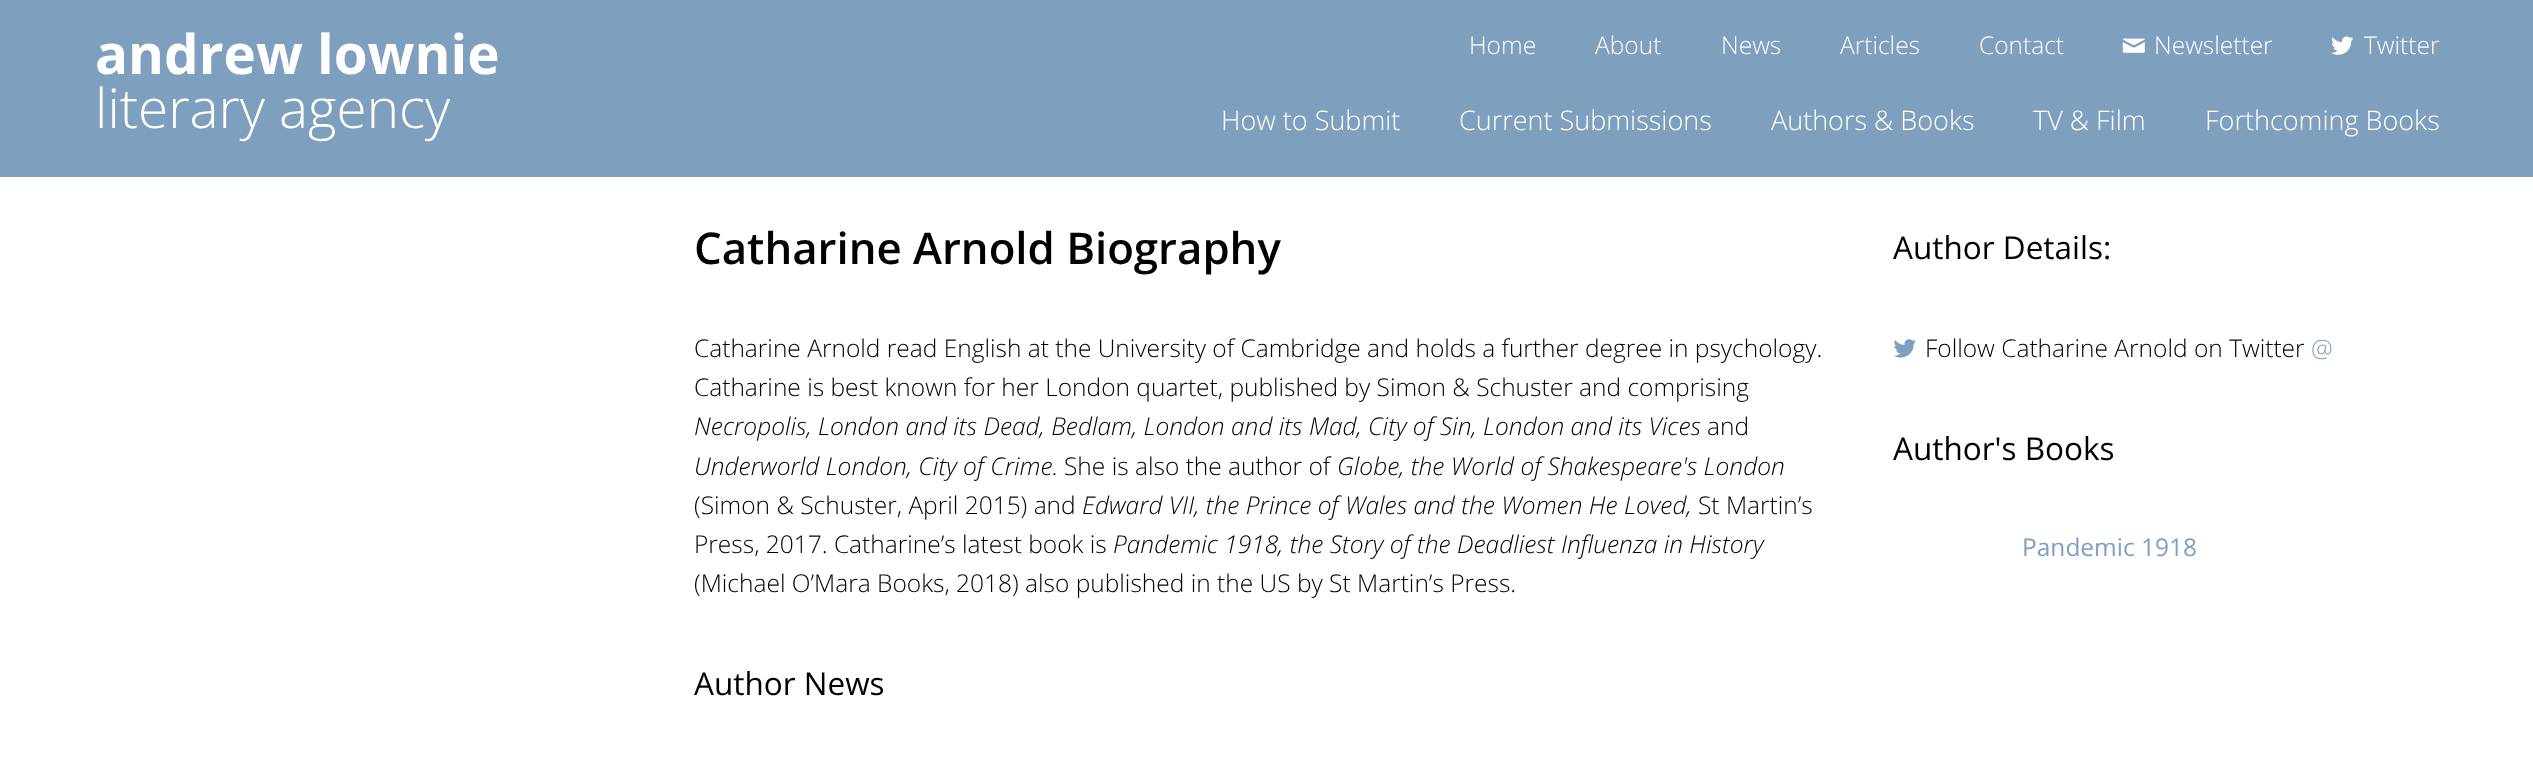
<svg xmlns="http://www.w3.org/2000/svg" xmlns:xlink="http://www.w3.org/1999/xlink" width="2533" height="764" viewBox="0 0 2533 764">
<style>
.cls-1{font:bold 54.75px Open Sans;fill:#ffffff}
.cls-2{font:300 54.75px Open Sans;fill:#ffffff}
.cls-3{font:300 24.5px Open Sans;fill:#ffffff}
.cls-4{font:300 27px Open Sans;fill:#ffffff}
.cls-5{font:600 43.75px Open Sans;fill:#000000}
.cls-6{font:300 24.5px Open Sans;fill:#000000}
.cls-7{font:italic 300 24.5px Open Sans;fill:#000000}
.cls-8{font:31.5px Open Sans;fill:#000000}
.cls-9{font:300 24.5px Open Sans;fill:#7f9fbf}
.cls-10{font:24.5px Open Sans;fill:#7f9fbf}
</style>
<rect width="100%" height="100%" fill="#ffffff"/>
<rect fill="#7f9fbf" x="0" y="0" width="2533" height="177"/>
<image xlink:href="image0.png" x="2122" y="38" width="23" height="15"/>
<image xlink:href="image1.png" x="2331" y="36" width="23" height="19"/>
<image xlink:href="image2.png" x="1893" y="339" width="23" height="19"/>
<text class="cls-1" x="95" y="74">andrew lownie</text>
<text class="cls-2" x="95" y="128">literary agency</text>
<text class="cls-3" x="1469" y="54">Home</text>
<text class="cls-3" x="1595" y="54">About</text>
<text class="cls-3" x="1721" y="54">News</text>
<text class="cls-3" x="1840" y="54">Articles</text>
<text class="cls-3" x="1979" y="54">Contact</text>
<text class="cls-3" x="2154" y="54">Newsletter</text>
<text class="cls-3" x="2364" y="54">Twitter</text>
<text class="cls-4" x="1221" y="130">How to Submit</text>
<text class="cls-4" x="1459" y="130">Current Submissions</text>
<text class="cls-4" x="1771" y="130">Authors &amp; Books</text>
<text class="cls-4" x="2033" y="130">TV &amp; Film</text>
<text class="cls-4" x="2205" y="130">Forthcoming Books</text>
<text class="cls-5" x="694" y="264">Catharine Arnold Biography</text>
<text class="cls-6"><tspan x="694" y="357">Catharine Arnold read English at the University of Cambridge and holds a further degree in psychology.</tspan><tspan x="694" y="396">Catharine is best known for her London quartet, published by Simon &amp; Schuster and comprising</tspan></text>
<text class="cls-7" x="694" y="435">Necropolis, London and its Dead, Bedlam, London and its Mad, City of Sin, London and its Vices</text>
<text class="cls-6" x="1707" y="435">and</text>
<text class="cls-7" x="694" y="475">Underworld London, City of Crime.</text>
<text class="cls-6" x="1064" y="475">She is also the author of</text>
<text class="cls-7" x="1337" y="475">Globe, the World of Shakespeare's London</text>
<text class="cls-6" x="694" y="514">(Simon &amp; Schuster, April 2015) and</text>
<text class="cls-7" x="1082" y="514">Edward VII, the Prince of Wales and the Women He Loved,</text>
<text class="cls-6" x="1698" y="514">St Martin’s</text>
<text class="cls-6" x="694" y="553">Press, 2017. Catharine’s latest book is</text>
<text class="cls-7" x="1113" y="553">Pandemic 1918, the Story of the Deadliest Influenza in History</text>
<text class="cls-6" x="694" y="592">(Michael O’Mara Books, 2018) also published in the US by St Martin’s Press.</text>
<text class="cls-8" x="694" y="695">Author News</text>
<text class="cls-8" x="1893" y="259">Author Details:</text>
<text class="cls-6" x="1925" y="357">Follow Catharine Arnold on Twitter</text>
<text class="cls-9" x="2311" y="357">@</text>
<text class="cls-8" x="1893" y="460">Author's Books</text>
<text class="cls-10" x="2022" y="556">Pandemic 1918</text>
</svg>
